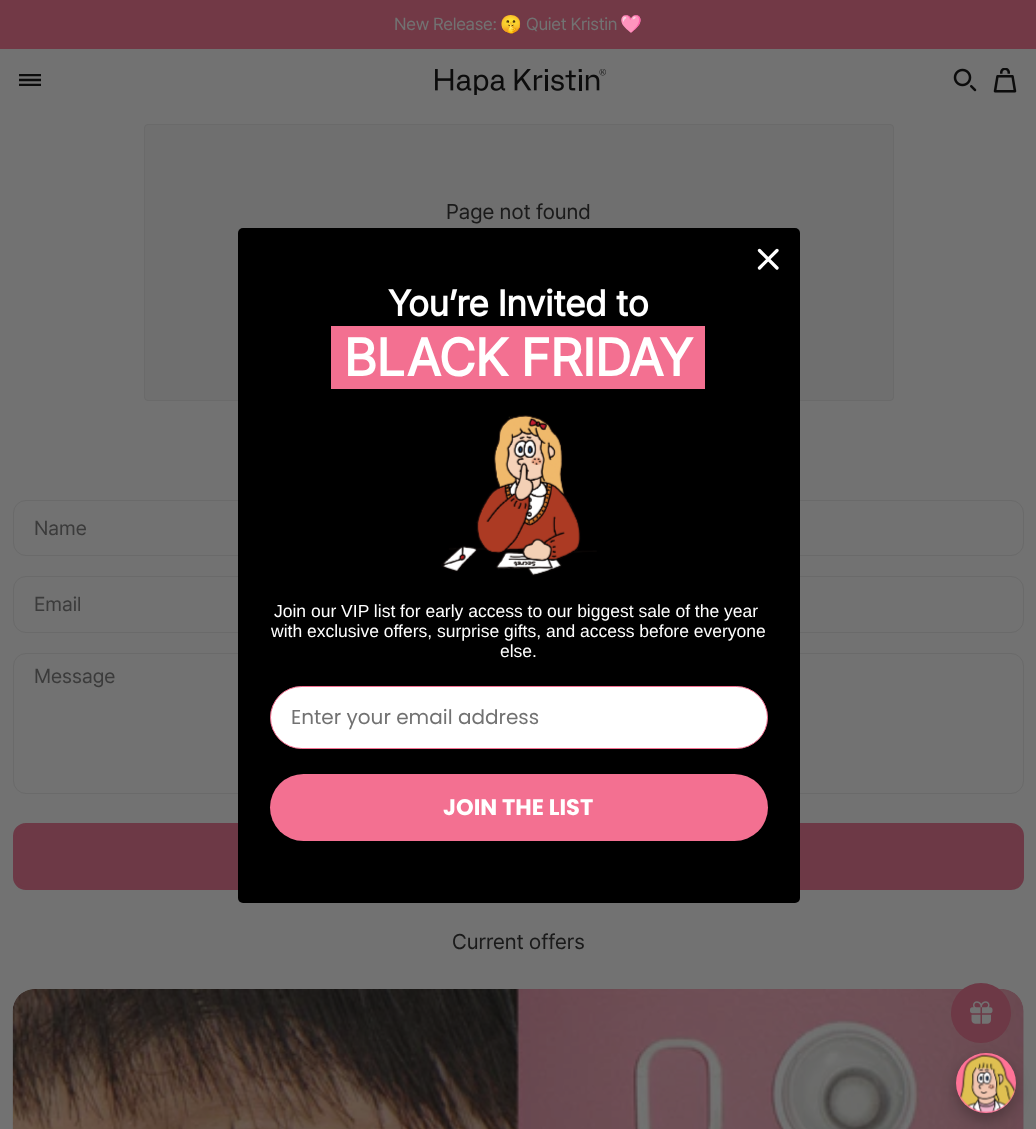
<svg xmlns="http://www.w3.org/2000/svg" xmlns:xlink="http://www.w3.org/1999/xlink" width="1036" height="1129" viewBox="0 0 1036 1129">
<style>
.cls-1{font:17.5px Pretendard;letter-spacing:-0.3px;fill:#727272}
.cls-2{font:17.5px Noto Color Emoji;letter-spacing:-0.3px;fill:#727272}
.cls-3{font:21.25px Pretendard;fill:#1a1a1a}
.cls-4{font:20px Pretendard;fill:#3b3b3b}
.cls-5{font:bold 36.25px Pretendard;fill:#ffffff}
.cls-6{font:bold 52.5px Pretendard;fill:#ffffff}
.cls-7{font:17.5px Liberation Sans;fill:#ffffff}
.cls-8{font:20px Poppins;fill:#727272}
.cls-9{font:bold 22.5px Poppins;fill:#ffffff}
</style>
<rect width="100%" height="100%" fill="#727272"/>
<rect fill="#723946" x="0" y="0" width="1036" height="49"/>
<image xlink:href="image0.png" x="19" y="74" width="22" height="12"/>
<image xlink:href="image1.png" x="435" y="69" width="171" height="26"/>
<image xlink:href="image2.png" x="953" y="68" width="24" height="24"/>
<image xlink:href="image3.png" x="993" y="68" width="24" height="25"/>
<rect fill="#6f6f6f" stroke="#6a6a6a" x="144.5" y="124.5" width="749" height="276" rx="3.5"/>
<rect fill="none" stroke="#6a6a6a" x="13.5" y="500.5" width="1010" height="55" rx="12.5"/>
<rect fill="none" stroke="#6a6a6a" x="13.5" y="576.5" width="1010" height="56" rx="12.5"/>
<rect fill="none" stroke="#6a6a6a" x="13.5" y="653.5" width="1010" height="140" rx="12.5"/>
<rect fill="#6d3946" stroke="#6d3946" stroke-width="3" x="14.5" y="824.5" width="1008" height="64" rx="11.5"/>
<image xlink:href="image4.png" x="12" y="989" width="1012" height="140"/>
<rect fill="#000000" x="238" y="228" width="562" height="675" rx="5"/>
<path fill="none" stroke="#ffffff" stroke-width="3.3" stroke-linecap="round" stroke-linejoin="round" d="M759.5 250.5L777 268M759.5 268L777 250.5Z"/>
<rect fill="#f37091" x="331" y="326" width="374" height="63"/>
<image xlink:href="image5.png" x="441" y="415" width="156" height="161"/>
<rect fill="#ffffff" stroke="#f37091" x="270.5" y="686.5" width="497" height="62" rx="31"/>
<rect fill="#f37091" x="270" y="774" width="498" height="67" rx="33.5"/>
<circle fill="#6d3946" cx="981" cy="1013" r="30"/>
<image xlink:href="image6.png" x="970" y="1001" width="23" height="23"/>
<rect fill="#000000" fill-opacity="0.25" filter="blur(7.5px)" x="956" y="1060" width="60" height="60" rx="30"/>
<circle fill="#ff7396" cx="986" cy="1083" r="30"/>
<image xlink:href="image7.png" x="960" y="1054" width="56" height="59"/>
<text class="cls-1" x="394" y="30">New Release:</text>
<text class="cls-2" x="500" y="30">🤫</text>
<text class="cls-1" x="526" y="30">Quiet Kristin</text>
<text class="cls-2" x="620" y="30">🩷</text>
<text class="cls-3" x="446" y="219">Page not found</text>
<text class="cls-4" x="34" y="535">Name</text>
<text class="cls-4" x="34" y="611">Email</text>
<text class="cls-4" x="34" y="683">Message</text>
<text class="cls-3" x="452" y="949">Current offers</text>
<text class="cls-5" x="388" y="316">You’re Invited to</text>
<text class="cls-6" x="344" y="376">BLACK FRIDAY</text>
<text class="cls-7" x="274" y="617">Join our VIP list for early access to our biggest sale of the year</text>
<text class="cls-7" x="271" y="637">with exclusive offers, surprise gifts, and access before everyone</text>
<text class="cls-7" x="500" y="657">else.</text>
<text class="cls-8" x="291" y="724">Enter your email address</text>
<text class="cls-9" x="443" y="815">JOIN THE LIST</text>
</svg>
